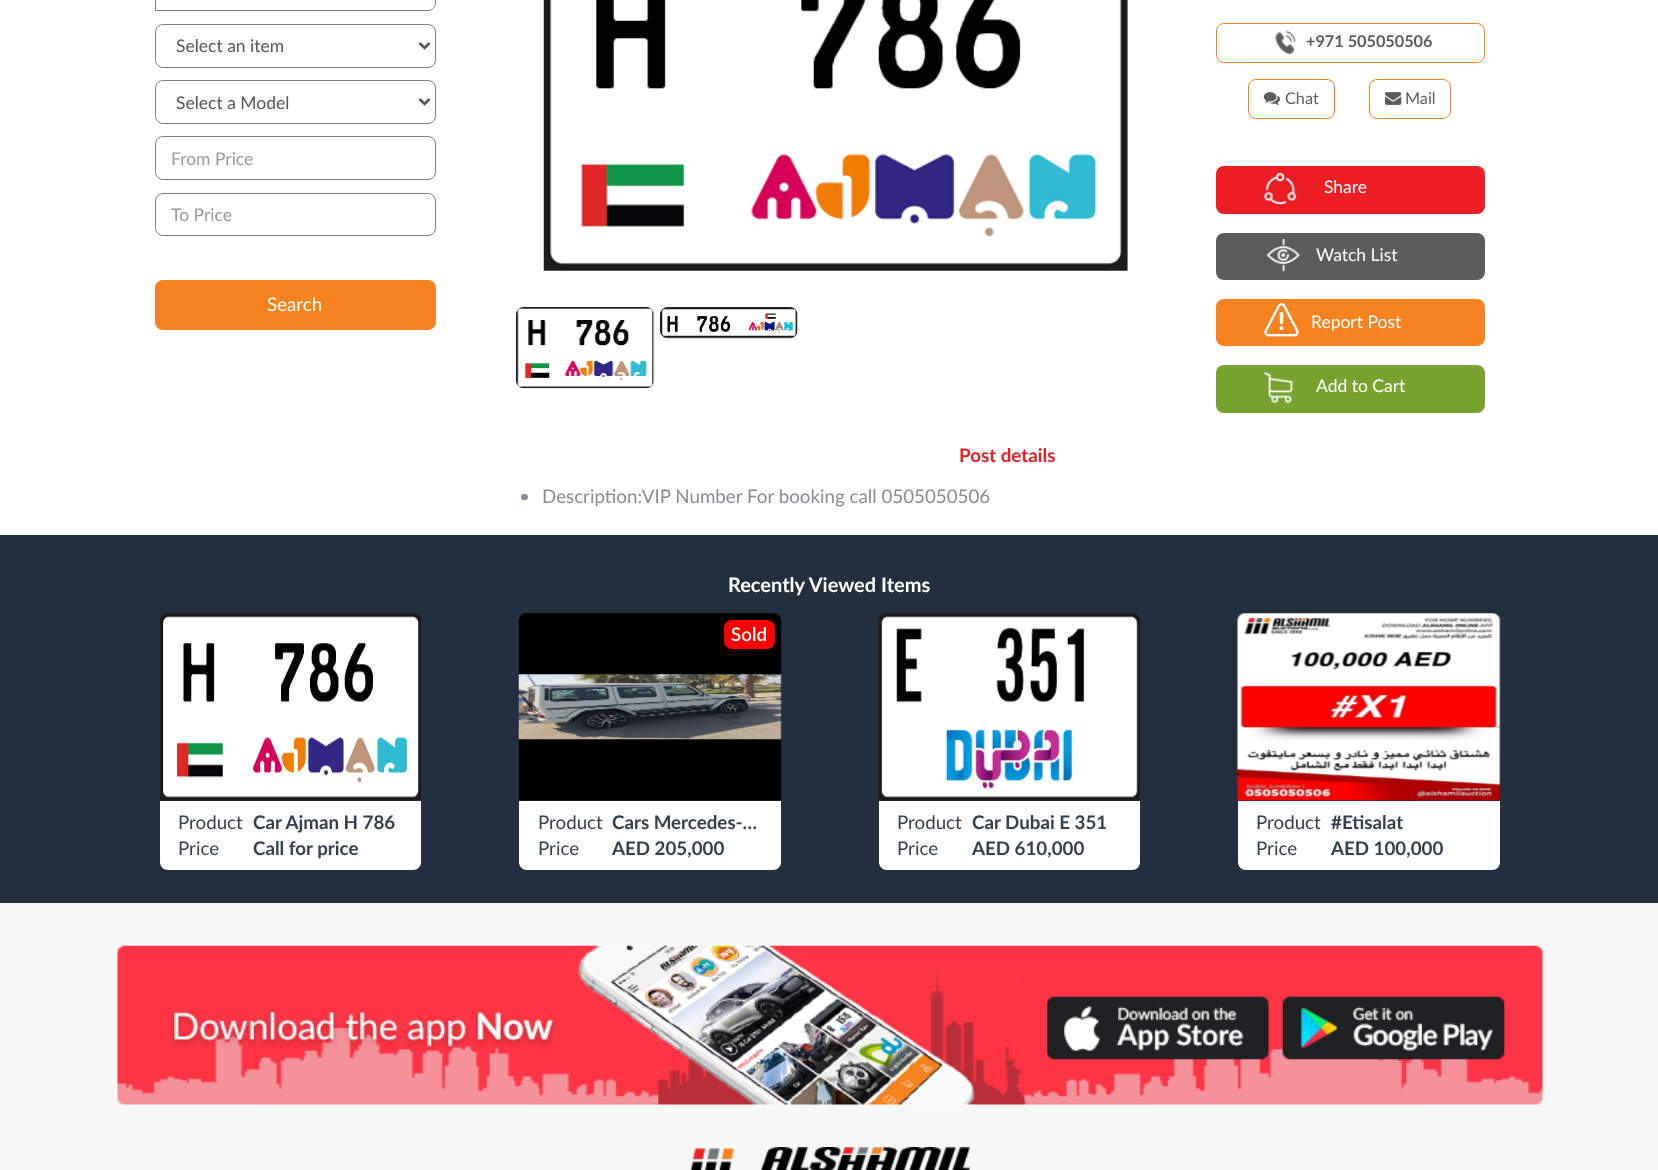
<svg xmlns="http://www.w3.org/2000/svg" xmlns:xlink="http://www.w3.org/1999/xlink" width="1658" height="1170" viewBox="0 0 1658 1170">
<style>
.cls-1{font:17.5px Lato;fill:#555555}
.cls-2{font:17.5px Lato;fill:#999999}
.cls-3{font:18.75px Lato;fill:#ffffff}
.cls-4{font:bold 16.25px Lato;fill:#5c5c5c}
.cls-5{font:16.25px Lato;fill:#5c5c5c}
.cls-6{font:17.5px Lato;fill:#ffffff}
.cls-7{font:bold 18.75px Lato;fill:#ed1d24}
.cls-8{font:18.75px Lato;fill:#878c94}
.cls-9{font:bold 20px Lato;fill:#ffffff}
.cls-10{font:18.75px Lato;fill:#35404f}
.cls-11{font:bold 18.75px Lato;fill:#35404f}
.cls-12{font:600 18.75px Lato;fill:#ffffff}
</style>
<rect width="100%" height="100%" fill="#ffffff"/>
<path fill="none" stroke="#7d7d7d" d="M155.5-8.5H428C432-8.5 435.5-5 435.5-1V3C435.5 7 432 10.5 428 10.5H155.5Z"/>
<rect fill="none" stroke="#7d7d7d" x="155.5" y="24.5" width="280" height="43" rx="7.5"/>
<path fill="none" stroke="#555555" stroke-width="2.5" d="M419.5 43L424.5 48L429.5 43"/>
<rect fill="none" stroke="#7d7d7d" x="155.5" y="80.5" width="280" height="43" rx="7.5"/>
<path fill="none" stroke="#555555" stroke-width="2.5" d="M419.5 99L424.5 104L429.5 99"/>
<rect fill="none" stroke="#7d7d7d" x="155.5" y="136.5" width="280" height="43" rx="7.5"/>
<rect fill="none" stroke="#7d7d7d" x="155.5" y="193.5" width="280" height="42" rx="7.5"/>
<rect fill="#f5821f" x="155" y="280" width="281" height="50" rx="8"/>
<image xlink:href="image0.png" x="543" y="0" width="585" height="271"/>
<image xlink:href="image1.png" x="516" y="307" width="139" height="82"/>
<image xlink:href="image2.png" x="660" y="307" width="138" height="32"/>
<rect fill="none" stroke="#f5821f" x="1216.5" y="23.5" width="268" height="39" rx="7.5"/>
<image xlink:href="image3.png" x="1274" y="30" width="23" height="25"/>
<rect fill="none" stroke="#f5821f" x="1248.5" y="79.5" width="86" height="39" rx="7.5"/>
<image xlink:href="image4.png" x="1263" y="92" width="17" height="13"/>
<rect fill="none" stroke="#f5821f" x="1369.5" y="79.5" width="81" height="39" rx="7.5"/>
<image xlink:href="image5.png" x="1385" y="92" width="17" height="13"/>
<rect fill="#ed1d24" x="1216" y="166" width="269" height="48" rx="8"/>
<image xlink:href="image6.png" x="1264" y="172" width="33" height="33"/>
<rect fill="#5c5c5c" x="1216" y="233" width="269" height="47" rx="8"/>
<image xlink:href="image7.png" x="1267" y="238" width="33" height="34"/>
<rect fill="#f5821f" x="1216" y="299" width="269" height="47" rx="8"/>
<image xlink:href="image8.png" x="1264" y="303" width="35" height="34"/>
<rect fill="#78a22f" x="1216" y="365" width="269" height="48" rx="8"/>
<image xlink:href="image9.png" x="1264" y="372" width="29" height="31"/>
<rect fill="#878c94" x="521" y="494" width="7" height="6" rx="3"/>
<rect fill="#232f3e" x="0" y="535" width="1658" height="368"/>
<image xlink:href="image10.png" x="160" y="613" width="261" height="188"/>
<path fill="#ffffff" d="M160 801H421V862C421 866.5 417.5 870 413 870H168C163.5 870 160 866.5 160 862Z"/>
<image xlink:href="image11.png" x="518" y="613" width="264" height="188"/>
<rect fill="#ff0000" x="724" y="620" width="51" height="29" rx="8"/>
<path fill="#ffffff" d="M519 801H781V862C781 866.5 777.5 870 773 870H527C522.5 870 519 866.5 519 862Z"/>
<image xlink:href="image12.png" x="878" y="613" width="262" height="188"/>
<path fill="#ffffff" d="M879 801H1140V862C1140 866.5 1136.5 870 1132 870H887C882.5 870 879 866.5 879 862Z"/>
<image xlink:href="image13.png" x="1237" y="613" width="264" height="189"/>
<path fill="#ffffff" d="M1238 801H1500V862C1500 866.5 1496.5 870 1492 870H1246C1241.5 870 1238 866.5 1238 862Z"/>
<rect fill="#f7f7f7" x="0" y="903" width="1658" height="267"/>
<image xlink:href="image14.png" x="117" y="945" width="1426" height="160"/>
<image xlink:href="image15.png" x="690" y="1147" width="280" height="23"/>
<text class="cls-1" x="176" y="52">Select an item</text>
<text class="cls-1" x="176" y="109">Select a Model</text>
<text class="cls-2" x="171" y="165">From Price</text>
<text class="cls-2" x="171" y="221">To Price</text>
<text class="cls-3" x="267" y="311">Search</text>
<text class="cls-4" x="1306" y="47">+971 505050506</text>
<text class="cls-5" x="1285" y="104">Chat</text>
<text class="cls-5" x="1405" y="104">Mail</text>
<text class="cls-6" x="1324" y="193">Share</text>
<text class="cls-6" x="1316" y="261">Watch List</text>
<text class="cls-6" x="1311" y="328">Report Post</text>
<text class="cls-6" x="1316" y="392">Add to Cart</text>
<text class="cls-7" x="959" y="462">Post details</text>
<text class="cls-8" x="542" y="503">Description:VIP Number For booking call 0505050506</text>
<text class="cls-9" x="728" y="592">Recently Viewed Items</text>
<text class="cls-10"><tspan x="178" y="829">Product</tspan><tspan x="178" y="855">Price</tspan></text>
<text class="cls-11"><tspan x="253" y="829">Car Ajman H 786</tspan><tspan x="253" y="855">Call for price</tspan></text>
<text class="cls-12" x="731" y="641">Sold</text>
<text class="cls-10"><tspan x="538" y="829">Product</tspan><tspan x="538" y="855">Price</tspan></text>
<text class="cls-11"><tspan x="612" y="829">Cars Mercedes-…</tspan><tspan x="612" y="855">AED 205,000</tspan></text>
<text class="cls-10"><tspan x="897" y="829">Product</tspan><tspan x="897" y="855">Price</tspan></text>
<text class="cls-11"><tspan x="972" y="829">Car Dubai E 351</tspan><tspan x="972" y="855">AED 610,000</tspan></text>
<text class="cls-10"><tspan x="1256" y="829">Product</tspan><tspan x="1256" y="855">Price</tspan></text>
<text class="cls-11"><tspan x="1331" y="829">#Etisalat</tspan><tspan x="1331" y="855">AED 100,000</tspan></text>
</svg>
